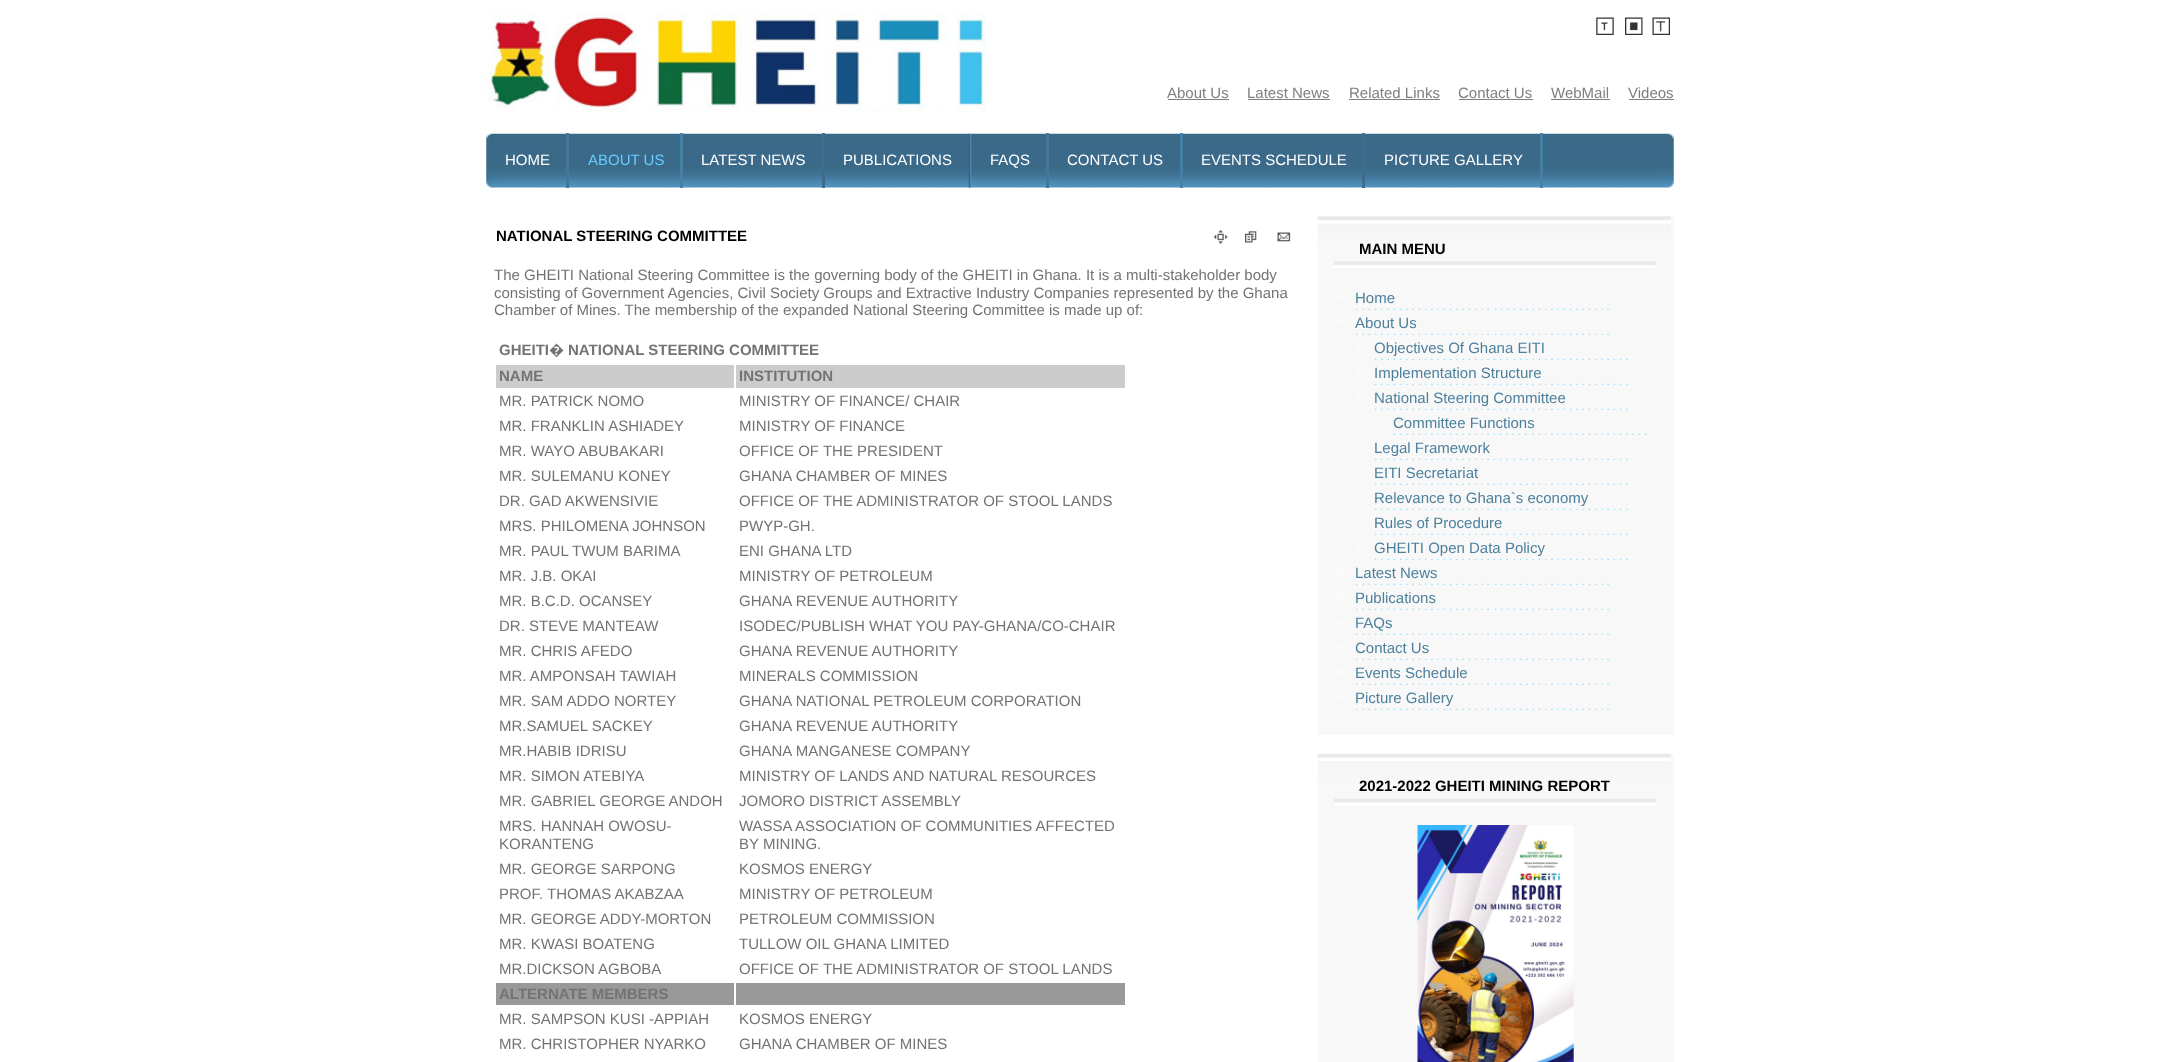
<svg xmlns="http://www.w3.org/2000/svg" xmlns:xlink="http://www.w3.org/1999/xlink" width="2160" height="1062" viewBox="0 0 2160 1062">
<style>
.cls-1{font:15px Liberation Sans;fill:#807f7f}
.cls-2{font:15px Liberation Sans;fill:#ffffff}
.cls-3{font:15px Liberation Sans;fill:#66ccff}
.cls-4{font:bold 15px Liberation Sans;fill:#010000}
.cls-5{font:15px Liberation Sans;fill:#737373}
.cls-6{font:bold 15px Liberation Sans;fill:#737373}
.cls-7{font:bold 15px Noto Sans;fill:#737373}
.cls-8{font:15px Liberation Sans;fill:#4d809d}
</style>
<rect width="100%" height="100%" fill="#ffffff"/>
<image xlink:href="image0.png" x="486" y="12" width="500" height="101"/>
<image xlink:href="image1.png" x="1596" y="17" width="18" height="18"/>
<image xlink:href="image2.png" x="1625" y="17" width="18" height="18"/>
<image xlink:href="image3.png" x="1652" y="17" width="18" height="18"/>
<rect fill="#807f7f" x="1168" y="99" width="61" height="1"/>
<rect fill="#807f7f" x="1248" y="99" width="82" height="1"/>
<rect fill="#807f7f" x="1349" y="99" width="91" height="1"/>
<rect fill="#807f7f" x="1459" y="99" width="74" height="1"/>
<rect fill="#807f7f" x="1551" y="99" width="59" height="1"/>
<rect fill="#807f7f" x="1629" y="99" width="45" height="1"/>
<image xlink:href="image4.png" x="486" y="133" width="1188" height="55"/>
<rect fill="#43789a" x="566" y="133" width="3" height="55"/>
<rect fill="#4780a6" x="680" y="133" width="3" height="55"/>
<rect fill="#3d6d8a" x="822" y="133" width="3" height="55"/>
<image xlink:href="image5.png" x="968" y="133" width="4" height="55"/>
<rect fill="#43789a" x="1046" y="133" width="3" height="55"/>
<rect fill="#4780a6" x="1180" y="133" width="3" height="55"/>
<rect fill="#3d6d8a" x="1362" y="133" width="3" height="55"/>
<rect fill="#4780a6" x="1540" y="133" width="3" height="55"/>
<image xlink:href="image6.png" x="1213" y="229" width="15" height="15"/>
<image xlink:href="image7.png" x="1245" y="231" width="12" height="12"/>
<image xlink:href="image8.png" x="1277" y="232" width="14" height="10"/>
<rect fill="#cccccc" x="496" y="365" width="238" height="23"/>
<rect fill="#cccccc" x="736" y="365" width="389" height="23"/>
<rect fill="#999999" x="496" y="983" width="238" height="22"/>
<rect fill="#999999" x="736" y="983" width="389" height="22"/>
<rect fill="#f8f8f8" x="1318" y="216" width="356" height="519"/>
<image xlink:href="image9.png" x="1317" y="216" width="354" height="54"/>
<image xlink:href="image10.png" x="1336" y="294" width="273" height="16"/>
<image xlink:href="image11.png" x="1336" y="319" width="273" height="16"/>
<image xlink:href="image12.png" x="1355" y="344" width="273" height="16"/>
<image xlink:href="image12.png" x="1355" y="369" width="273" height="16"/>
<image xlink:href="image12.png" x="1355" y="394" width="273" height="16"/>
<image xlink:href="image13.png" x="1374" y="419" width="273" height="16"/>
<image xlink:href="image12.png" x="1355" y="444" width="273" height="16"/>
<image xlink:href="image12.png" x="1355" y="469" width="273" height="16"/>
<image xlink:href="image12.png" x="1355" y="494" width="273" height="16"/>
<image xlink:href="image12.png" x="1355" y="519" width="273" height="16"/>
<image xlink:href="image12.png" x="1355" y="544" width="273" height="16"/>
<image xlink:href="image11.png" x="1336" y="569" width="273" height="16"/>
<image xlink:href="image10.png" x="1336" y="594" width="273" height="16"/>
<image xlink:href="image11.png" x="1336" y="619" width="273" height="16"/>
<image xlink:href="image11.png" x="1336" y="644" width="273" height="16"/>
<image xlink:href="image11.png" x="1336" y="669" width="273" height="16"/>
<image xlink:href="image11.png" x="1336" y="694" width="273" height="16"/>
<rect fill="#f8f8f8" x="1318" y="754" width="356" height="308"/>
<image xlink:href="image14.png" x="1317" y="753" width="354" height="53"/>
<image xlink:href="image15.png" x="1417" y="825" width="157" height="237"/>
<text class="cls-1" x="1167" y="98">About Us</text>
<text class="cls-1" x="1247" y="98">Latest News</text>
<text class="cls-1" x="1349" y="98">Related Links</text>
<text class="cls-1" x="1458" y="98">Contact Us</text>
<text class="cls-1" x="1551" y="98">WebMail</text>
<text class="cls-1" x="1628" y="98">Videos</text>
<text class="cls-2" x="505" y="165">HOME</text>
<text class="cls-3" x="588" y="165">ABOUT US</text>
<text class="cls-2" x="701" y="165">LATEST NEWS</text>
<text class="cls-2" x="843" y="165">PUBLICATIONS</text>
<text class="cls-2" x="990" y="165">FAQS</text>
<text class="cls-2" x="1067" y="165">CONTACT US</text>
<text class="cls-2" x="1201" y="165">EVENTS SCHEDULE</text>
<text class="cls-2" x="1384" y="165">PICTURE GALLERY</text>
<text class="cls-4" x="496" y="241">NATIONAL STEERING COMMITTEE</text>
<text class="cls-5"><tspan x="494" y="280">The GHEITI National Steering Committee is the governing body of the GHEITI in Ghana. It is a multi-stakeholder body</tspan><tspan x="494" y="298">consisting of Government Agencies, Civil Society Groups and Extractive Industry Companies represented by the Ghana</tspan><tspan x="494" y="315">Chamber of Mines. The membership of the expanded National Steering Committee is made up of:</tspan></text>
<text class="cls-6" x="499" y="355">GHEITI</text>
<text class="cls-7" x="549" y="355">�</text>
<text class="cls-6" x="568" y="355">NATIONAL STEERING COMMITTEE</text>
<text class="cls-6" x="499" y="381">NAME</text>
<text class="cls-6" x="739" y="381">INSTITUTION</text>
<text class="cls-5" x="499" y="406">MR. PATRICK NOMO</text>
<text class="cls-5" x="739" y="406">MINISTRY OF FINANCE/ CHAIR</text>
<text class="cls-5" x="499" y="431">MR. FRANKLIN ASHIADEY</text>
<text class="cls-5" x="739" y="431">MINISTRY OF FINANCE</text>
<text class="cls-5" x="499" y="456">MR. WAYO ABUBAKARI</text>
<text class="cls-5" x="739" y="456">OFFICE OF THE PRESIDENT</text>
<text class="cls-5" x="499" y="481">MR. SULEMANU KONEY</text>
<text class="cls-5" x="739" y="481">GHANA CHAMBER OF MINES</text>
<text class="cls-5" x="499" y="506">DR. GAD AKWENSIVIE</text>
<text class="cls-5" x="739" y="506">OFFICE OF THE ADMINISTRATOR OF STOOL LANDS</text>
<text class="cls-5" x="499" y="531">MRS. PHILOMENA JOHNSON</text>
<text class="cls-5" x="739" y="531">PWYP-GH.</text>
<text class="cls-5" x="499" y="556">MR. PAUL TWUM BARIMA</text>
<text class="cls-5" x="739" y="556">ENI GHANA LTD</text>
<text class="cls-5" x="499" y="581">MR. J.B. OKAI</text>
<text class="cls-5" x="739" y="581">MINISTRY OF PETROLEUM</text>
<text class="cls-5" x="499" y="606">MR. B.C.D. OCANSEY</text>
<text class="cls-5" x="739" y="606">GHANA REVENUE AUTHORITY</text>
<text class="cls-5" x="499" y="631">DR. STEVE MANTEAW</text>
<text class="cls-5" x="739" y="631">ISODEC/PUBLISH WHAT YOU PAY-GHANA/CO-CHAIR</text>
<text class="cls-5" x="499" y="656">MR. CHRIS AFEDO</text>
<text class="cls-5" x="739" y="656">GHANA REVENUE AUTHORITY</text>
<text class="cls-5" x="499" y="681">MR. AMPONSAH TAWIAH</text>
<text class="cls-5" x="739" y="681">MINERALS COMMISSION</text>
<text class="cls-5" x="499" y="706">MR. SAM ADDO NORTEY</text>
<text class="cls-5" x="739" y="706">GHANA NATIONAL PETROLEUM CORPORATION</text>
<text class="cls-5" x="499" y="731">MR.SAMUEL SACKEY</text>
<text class="cls-5" x="739" y="731">GHANA REVENUE AUTHORITY</text>
<text class="cls-5" x="499" y="756">MR.HABIB IDRISU</text>
<text class="cls-5" x="739" y="756">GHANA MANGANESE COMPANY</text>
<text class="cls-5" x="499" y="781">MR. SIMON ATEBIYA</text>
<text class="cls-5" x="739" y="781">MINISTRY OF LANDS AND NATURAL RESOURCES</text>
<text class="cls-5" x="499" y="806">MR. GABRIEL GEORGE ANDOH</text>
<text class="cls-5" x="739" y="806">JOMORO DISTRICT ASSEMBLY</text>
<text class="cls-5"><tspan x="499" y="831">MRS. HANNAH OWOSU-</tspan><tspan x="499" y="849">KORANTENG</tspan></text>
<text class="cls-5" x="739" y="831">WASSA</text>
<text class="cls-5" x="795" y="831">ASSOCIATION OF COMMUNITIES AFFECTED</text>
<text class="cls-5" x="739" y="849">BY MINING.</text>
<text class="cls-5" x="499" y="874">MR. GEORGE SARPONG</text>
<text class="cls-5" x="739" y="874">KOSMOS ENERGY</text>
<text class="cls-5" x="499" y="899">PROF. THOMAS AKABZAA</text>
<text class="cls-5" x="739" y="899">MINISTRY OF PETROLEUM</text>
<text class="cls-5" x="499" y="924">MR. GEORGE ADDY-MORTON</text>
<text class="cls-5" x="739" y="924">PETROLEUM COMMISSION</text>
<text class="cls-5" x="499" y="949">MR. KWASI BOATENG</text>
<text class="cls-5" x="739" y="949">TULLOW OIL GHANA LIMITED</text>
<text class="cls-5" x="499" y="974">MR.DICKSON</text>
<text class="cls-5" x="598" y="974">AGBOBA</text>
<text class="cls-5" x="739" y="974">OFFICE OF THE ADMINISTRATOR OF STOOL LANDS</text>
<text class="cls-6" x="499" y="999">ALTERNATE MEMBERS</text>
<text class="cls-5" x="499" y="1024">MR. SAMPSON KUSI -APPIAH</text>
<text class="cls-5" x="739" y="1024">KOSMOS ENERGY</text>
<text class="cls-5" x="499" y="1049">MR. CHRISTOPHER NYARKO</text>
<text class="cls-5" x="739" y="1049">GHANA CHAMBER OF MINES</text>
<text class="cls-4" x="1359" y="254">MAIN MENU</text>
<text class="cls-8"><tspan x="1355" y="303">Home</tspan><tspan x="1355" y="328">About Us</tspan></text>
<text class="cls-8"><tspan x="1374" y="353">Objectives Of Ghana EITI</tspan><tspan x="1374" y="378">Implementation Structure</tspan><tspan x="1374" y="403">National Steering Committee</tspan></text>
<text class="cls-8" x="1393" y="428">Committee Functions</text>
<text class="cls-8"><tspan x="1374" y="453">Legal Framework</tspan><tspan x="1374" y="478">EITI Secretariat</tspan><tspan x="1374" y="503">Relevance to Ghana`s economy</tspan><tspan x="1374" y="528">Rules of Procedure</tspan><tspan x="1374" y="553">GHEITI Open Data Policy</tspan></text>
<text class="cls-8"><tspan x="1355" y="578">Latest News</tspan><tspan x="1355" y="603">Publications</tspan><tspan x="1355" y="628">FAQs</tspan><tspan x="1355" y="653">Contact Us</tspan><tspan x="1355" y="678">Events Schedule</tspan><tspan x="1355" y="703">Picture Gallery</tspan></text>
<text class="cls-4" x="1359" y="791">2021-2022 GHEITI MINING REPORT</text>
</svg>
